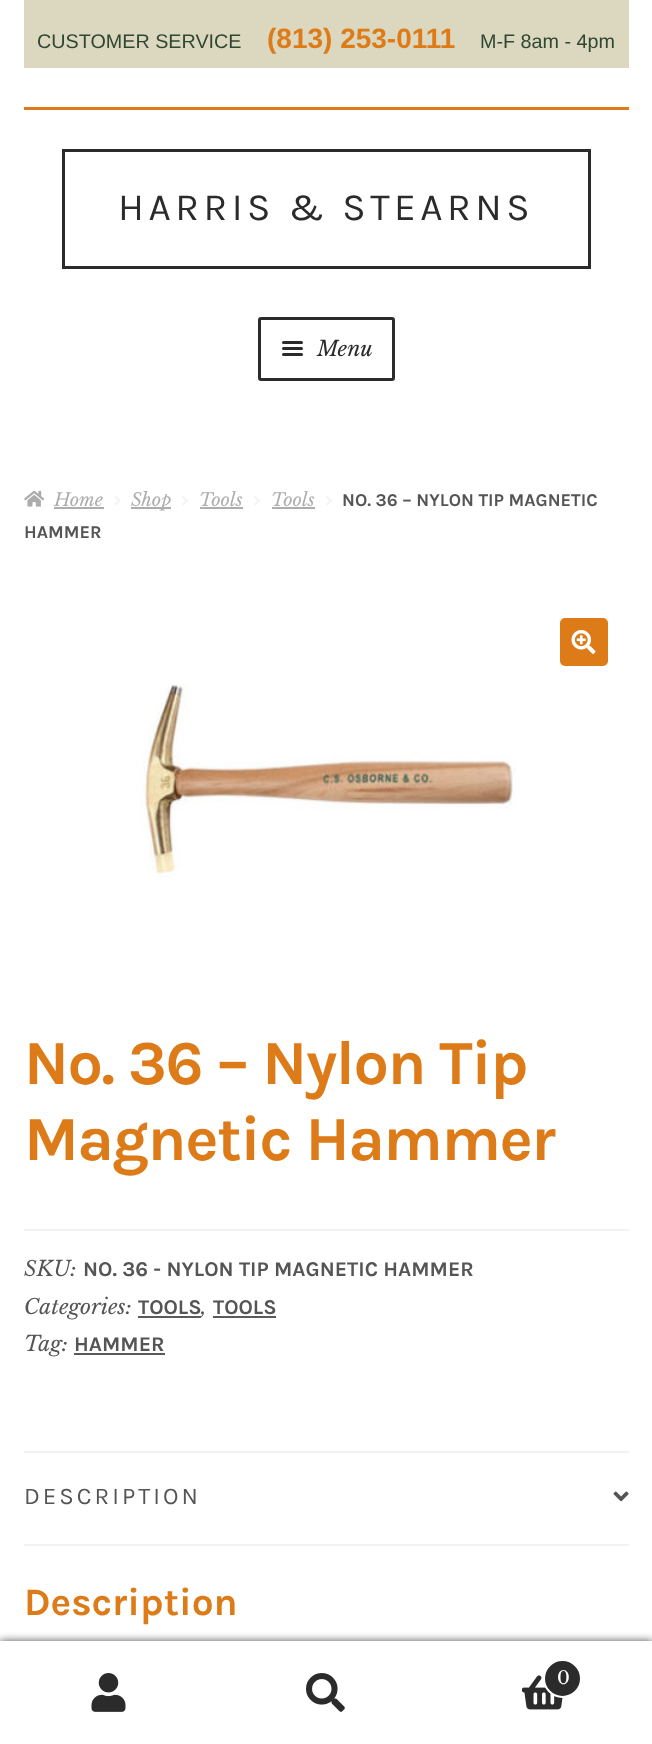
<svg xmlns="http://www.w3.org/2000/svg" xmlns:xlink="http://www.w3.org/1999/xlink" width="652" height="1744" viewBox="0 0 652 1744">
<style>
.cls-1{font:19.75px Liberation Sans;fill:#2f4632}
.cls-2{font:bold 28px Liberation Sans;fill:#dc7b18}
.cls-3{font:38.75px Karla;letter-spacing:4.5px;fill:#2b2b2b}
.cls-4{font:italic 21px Libre Baskerville;fill:#2b2b2b}
.cls-5{font:italic 18px Libre Baskerville;fill:#adadad}
.cls-6{font:bold 18px Karla;fill:#555555}
.cls-7{font:bold 62.75px Karla;letter-spacing:-1.5px;fill:#dc7b18}
.cls-8{font:italic 21px Libre Baskerville;fill:#555555}
.cls-9{font:bold 21px Karla;fill:#555555}
.cls-10{font:24px Karla;letter-spacing:3px;fill:#555555}
.cls-11{font:bold 38.75px Karla;fill:#dc7b18}
.cls-12{font:18px Libre Baskerville;fill:#ffffff}
</style>
<rect width="100%" height="100%" fill="#ffffff"/>
<rect fill="#dcd8bf" x="24" y="0" width="605" height="68"/>
<rect fill="#dc7b18" x="24" y="107" width="605" height="3"/>
<rect fill="none" stroke="#2b2b2b" stroke-width="3" x="63.5" y="150.5" width="526" height="117"/>
<rect fill="none" stroke="#2b2b2b" stroke-width="3" x="259.5" y="318.5" width="134" height="61" rx="1.5"/>
<rect fill="#2b2b2b" x="282" y="341" width="21" height="3" rx="1.5"/>
<rect fill="#2b2b2b" x="282" y="347" width="21" height="3" rx="1.5"/>
<rect fill="#2b2b2b" x="282" y="353" width="21" height="3" rx="1.5"/>
<image xlink:href="image0.png" x="24" y="490" width="21" height="17"/>
<rect fill="#adadad" x="54" y="507" width="50" height="2"/>
<image xlink:href="image1.png" x="114" y="496" width="7" height="10"/>
<rect fill="#adadad" x="131" y="507" width="40" height="2"/>
<image xlink:href="image2.png" x="182" y="496" width="6" height="10"/>
<rect fill="#adadad" x="200" y="507" width="43" height="2"/>
<image xlink:href="image2.png" x="254" y="496" width="6" height="10"/>
<rect fill="#adadad" x="272" y="507" width="43" height="2"/>
<image xlink:href="image2.png" x="326" y="496" width="6" height="10"/>
<rect fill="#dc7b18" x="560" y="618" width="48" height="48" rx="5"/>
<image xlink:href="image3.png" x="571" y="630" width="25" height="24"/>
<image xlink:href="image4.png" x="140" y="684" width="376" height="194"/>
<rect fill="#f2f2f2" x="24" y="1229" width="605" height="2"/>
<rect fill="#5a5a5a" x="138" y="1316" width="63" height="2"/>
<rect fill="#5a5a5a" x="213" y="1316" width="63" height="2"/>
<rect fill="#5a5a5a" x="74" y="1353" width="91" height="2"/>
<rect fill="#f2f2f2" x="24" y="1451" width="605" height="2"/>
<rect fill="#f2f2f2" x="24" y="1544" width="605" height="2"/>
<image xlink:href="image5.png" x="613" y="1491" width="16" height="11"/>
<rect fill="#000000" fill-opacity="0.7" filter="blur(4.5px)" x="0" y="1641" width="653" height="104"/>
<rect fill="#ffffff" x="0" y="1641" width="652" height="2"/>
<rect fill="#ffffff" x="0" y="1643" width="652" height="101"/>
<image xlink:href="image6.png" x="91" y="1673" width="35" height="39"/>
<image xlink:href="image7.png" x="306" y="1673" width="39" height="39"/>
<image xlink:href="image8.png" x="522" y="1675" width="41" height="35"/>
<circle fill="#2b2b2b" stroke="#ffffff" stroke-width="2" cx="562.5" cy="1678.5" r="18.5"/>
<text class="cls-1" x="37" y="48">CUSTOMER SERVICE</text>
<text class="cls-2" x="267" y="48">(813) 253-0111</text>
<text class="cls-1" x="480" y="48">M-F 8am - 4pm</text>
<text class="cls-3" x="118" y="220">HARRIS &amp; STEARNS</text>
<text class="cls-4" x="317" y="356">Menu</text>
<text class="cls-5" x="54" y="506">Home</text>
<text class="cls-5" x="131" y="506">Shop</text>
<text class="cls-5" x="199" y="506">Tools</text>
<text class="cls-5" x="271" y="506">Tools</text>
<text class="cls-6" x="342" y="506">NO. 36 – NYLON TIP MAGNETIC</text>
<text class="cls-6" x="24" y="538">HAMMER</text>
<text class="cls-7"><tspan x="24" y="1084">No. 36 – Nylon Tip</tspan><tspan x="24" y="1160">Magnetic Hammer</tspan></text>
<text class="cls-8" x="24" y="1276">SKU:</text>
<text class="cls-9" x="83" y="1276">NO. 36 - NYLON TIP MAGNETIC HAMMER</text>
<text class="cls-8" x="24" y="1314">Categories:</text>
<text class="cls-9" x="138" y="1314">TOOLS</text>
<text class="cls-8" x="201" y="1314">,</text>
<text class="cls-9" x="213" y="1314">TOOLS</text>
<text class="cls-8" x="24" y="1351">Tag:</text>
<text class="cls-9" x="74" y="1351">HAMMER</text>
<text class="cls-10" x="24" y="1504">DESCRIPTION</text>
<text class="cls-11" x="24" y="1615">Description</text>
<text class="cls-12" x="557" y="1684">0</text>
</svg>
